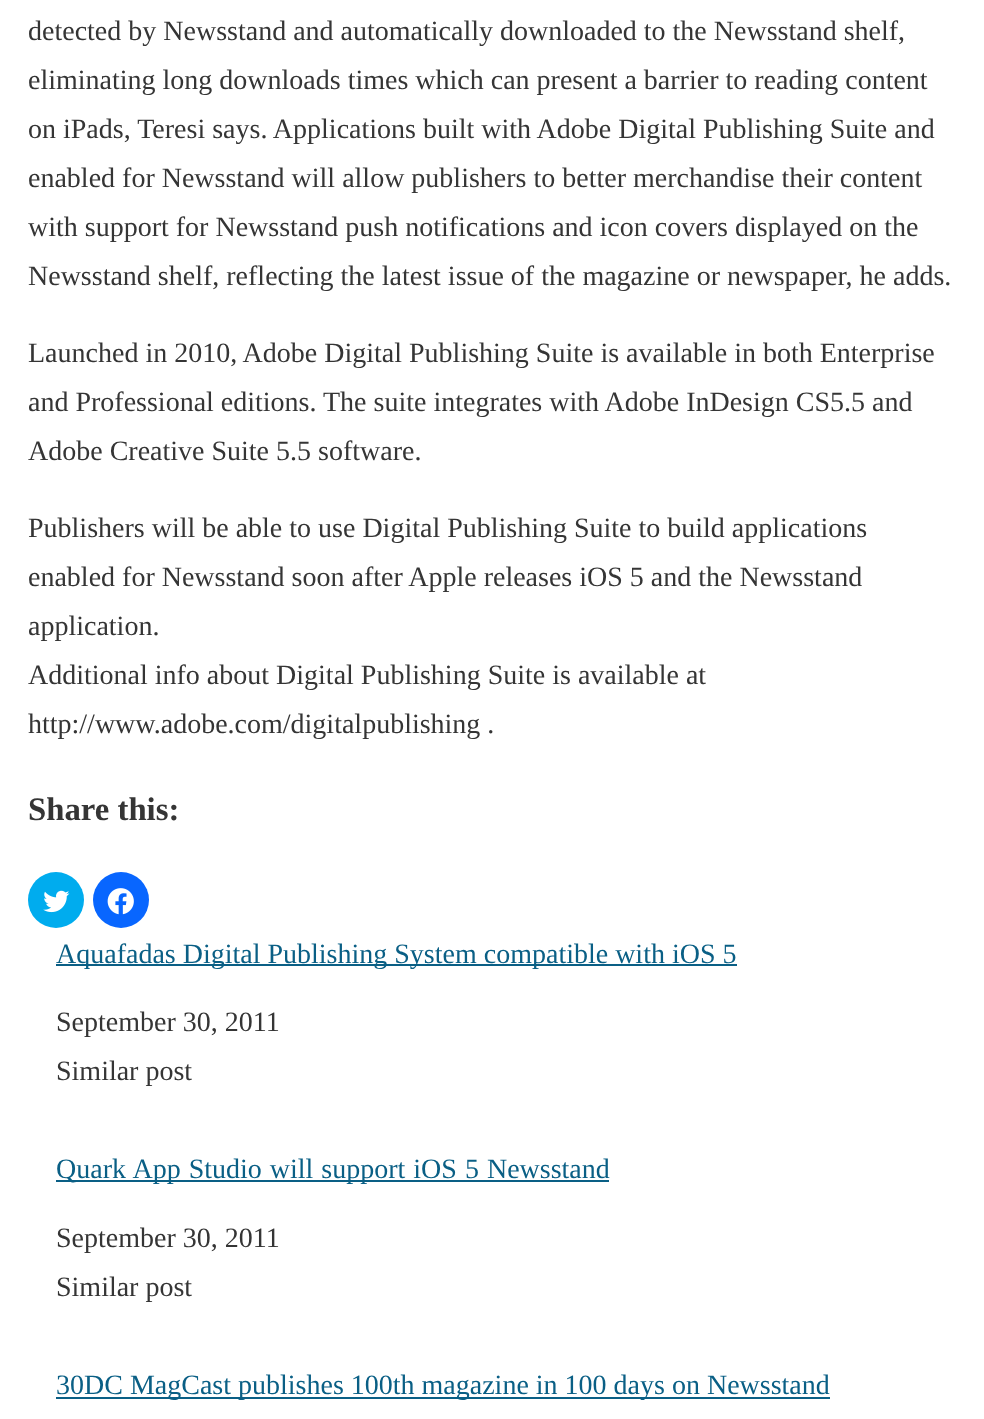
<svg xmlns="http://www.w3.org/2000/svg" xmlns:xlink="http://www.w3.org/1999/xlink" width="984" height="1419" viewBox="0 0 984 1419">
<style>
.cls-1{font:28px Liberation Serif;fill:#353535}
.cls-2{font:bold 32.75px Liberation Serif;fill:#353535}
.cls-3{font:28px Liberation Serif;fill:#0a5f85}
</style>
<rect width="100%" height="100%" fill="#ffffff"/>
<circle fill="#00acee" cx="56" cy="900" r="28"/>
<image xlink:href="image0.png" x="43" y="890" width="27" height="23"/>
<circle fill="#0866ff" cx="121" cy="900" r="28"/>
<image xlink:href="image1.png" x="107" y="888" width="27" height="27"/>
<rect fill="#0a5f85" x="56" y="964" width="681" height="2"/>
<rect fill="#0a5f85" x="56" y="1180" width="553" height="2"/>
<rect fill="#0a5f85" x="56" y="1397" width="774" height="2"/>
<text class="cls-1"><tspan x="28" y="40">detected by Newsstand and automatically downloaded to the Newsstand shelf,</tspan><tspan x="28" y="89">eliminating long downloads times which can present a barrier to reading content</tspan><tspan x="28" y="138">on iPads, Teresi says. Applications built with Adobe Digital Publishing Suite and</tspan><tspan x="28" y="187">enabled for Newsstand will allow publishers to better merchandise their content</tspan><tspan x="28" y="236">with support for Newsstand push notifications and icon covers displayed on the</tspan><tspan x="28" y="285">Newsstand shelf, reflecting the latest issue of the magazine or newspaper, he adds.</tspan></text>
<text class="cls-1"><tspan x="28" y="362">Launched in 2010, Adobe Digital Publishing Suite is available in both Enterprise</tspan><tspan x="28" y="411">and Professional editions. The suite integrates with Adobe InDesign CS5.5 and</tspan><tspan x="28" y="460">Adobe Creative Suite 5.5 software.</tspan></text>
<text class="cls-1"><tspan x="28" y="537">Publishers will be able to use Digital Publishing Suite to build applications</tspan><tspan x="28" y="586">enabled for Newsstand soon after Apple releases iOS 5 and the Newsstand</tspan><tspan x="28" y="635">application.</tspan><tspan x="28" y="684">Additional info about Digital Publishing Suite is available at</tspan><tspan x="28" y="733">http://www.adobe.com/digitalpublishing .</tspan></text>
<text class="cls-2" x="28" y="820">Share this:</text>
<text class="cls-3" x="56" y="963">Aquafadas Digital Publishing System compatible with iOS 5</text>
<text class="cls-1"><tspan x="56" y="1031">September 30, 2011</tspan><tspan x="56" y="1080">Similar post</tspan></text>
<text class="cls-3" x="56" y="1178" word-spacing="1">Quark App Studio will support iOS 5 Newsstand</text>
<text class="cls-1"><tspan x="56" y="1247">September 30, 2011</tspan><tspan x="56" y="1296">Similar post</tspan></text>
<text class="cls-3" x="56" y="1394">30DC MagCast publishes 100th magazine in 100 days on Newsstand</text>
</svg>
